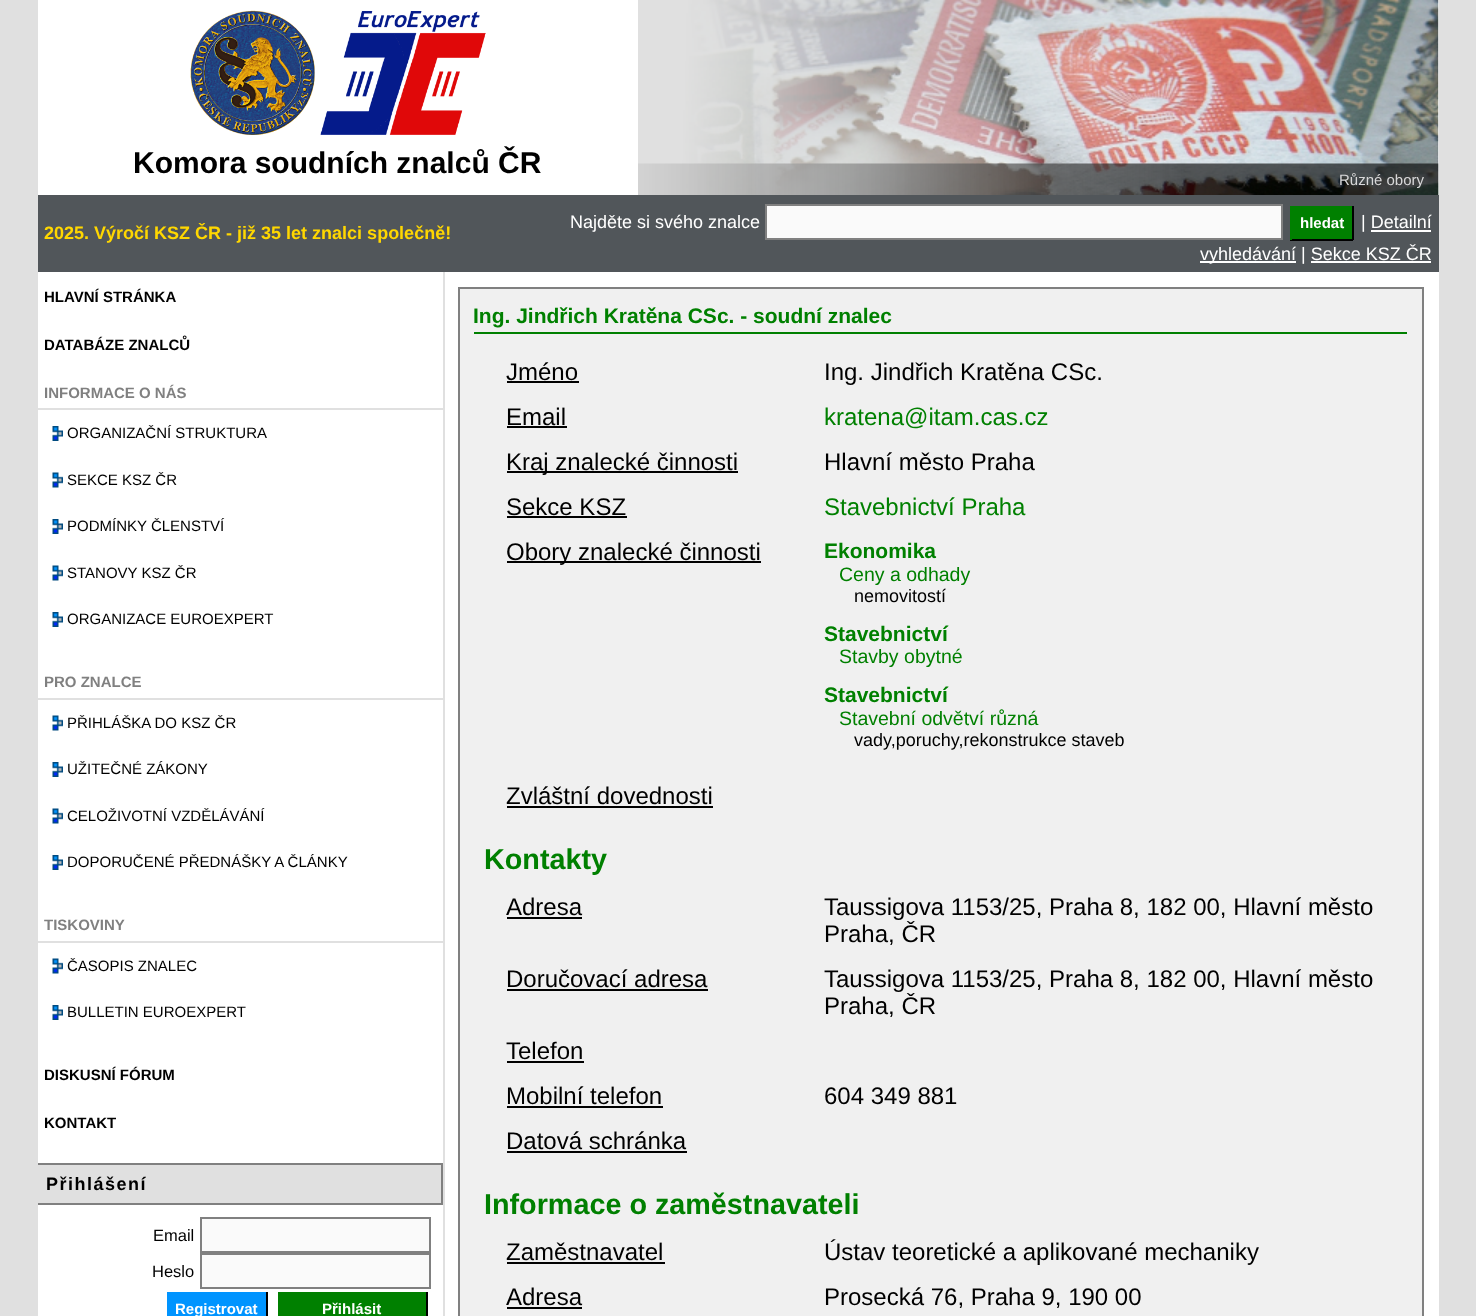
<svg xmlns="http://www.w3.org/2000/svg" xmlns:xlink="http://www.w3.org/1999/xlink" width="1476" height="1316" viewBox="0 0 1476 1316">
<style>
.cls-1{font:bold 30px Liberation Sans;fill:#000000}
.cls-2{font:15px Liberation Sans;fill:#d8d8d9}
.cls-3{font:bold 18px Liberation Sans;fill:#ffd700}
.cls-4{font:18px Liberation Sans;fill:#ffffff}
.cls-5{font:bold 15px Liberation Sans;fill:#ffffff}
.cls-6{font:bold 15px Liberation Sans;fill:#000000}
.cls-7{font:bold 15px Liberation Sans;fill:#808080}
.cls-8{font:15px Liberation Sans;fill:#000000}
.cls-9{font:bold 18px Liberation Sans;letter-spacing:1.5px;fill:#000000}
.cls-10{font:16.5px Liberation Sans;fill:#000000}
.cls-11{font:bold 21px Liberation Sans;fill:#008000}
.cls-12{font:24px Liberation Sans;fill:#000000}
.cls-13{font:24px Liberation Sans;fill:#008000}
.cls-14{font:19.5px Liberation Sans;fill:#008000}
.cls-15{font:18px Liberation Sans;fill:#000000}
.cls-16{font:bold 28.75px Liberation Sans;fill:#008000}
</style>
<rect width="100%" height="100%" fill="#e0e0e0"/>
<rect fill="#ffffff" x="38" y="0" width="600" height="195"/>
<image xlink:href="image0.png" x="190" y="10" width="296" height="125"/>
<rect fill="#ffffff" x="1438" y="0" width="1" height="195"/>
<image xlink:href="image1.png" x="638" y="0" width="801" height="195"/>
<image xlink:href="image2.png" x="638" y="163" width="801" height="32"/>
<rect fill="#51565a" x="38" y="195" width="1401" height="77"/>
<rect fill="#fafafa" stroke="#808080" stroke-width="2" x="766" y="205" width="516" height="34"/>
<rect fill="#008000" x="1292" y="206" width="60" height="33"/>
<rect fill="#000000" x="1352" y="206" width="2" height="34"/>
<rect fill="#000000" x="1290" y="239" width="63" height="2"/>
<rect fill="#008000" x="1290" y="206" width="2" height="34"/>
<rect fill="#ffffff" x="1371" y="230" width="60" height="2"/>
<rect fill="#ffffff" x="1200" y="261" width="96" height="2"/>
<rect fill="#ffffff" x="1311" y="261" width="120" height="2"/>
<rect fill="#ffffff" x="38" y="272" width="1401" height="1044"/>
<rect fill="#e0e0e0" x="443" y="272" width="2" height="1044"/>
<rect fill="#e0e0e0" x="38" y="408" width="405" height="2"/>
<image xlink:href="image3.png" x="52" y="426" width="11" height="15"/>
<image xlink:href="image4.png" x="52" y="472" width="11" height="16"/>
<image xlink:href="image3.png" x="52" y="519" width="11" height="15"/>
<image xlink:href="image4.png" x="52" y="565" width="11" height="16"/>
<image xlink:href="image3.png" x="52" y="612" width="11" height="15"/>
<rect fill="#e0e0e0" x="38" y="698" width="405" height="2"/>
<image xlink:href="image4.png" x="52" y="715" width="11" height="16"/>
<image xlink:href="image3.png" x="52" y="762" width="11" height="15"/>
<image xlink:href="image4.png" x="52" y="808" width="11" height="16"/>
<image xlink:href="image3.png" x="52" y="855" width="11" height="15"/>
<rect fill="#e0e0e0" x="38" y="941" width="405" height="2"/>
<image xlink:href="image4.png" x="52" y="958" width="11" height="16"/>
<image xlink:href="image3.png" x="52" y="1005" width="11" height="15"/>
<rect fill="#e0e0e0" x="38" y="1165" width="403" height="38"/>
<rect fill="#808080" x="38" y="1163" width="405" height="2"/>
<rect fill="#808080" x="441" y="1163" width="2" height="42"/>
<rect fill="#808080" x="38" y="1203" width="405" height="2"/>
<rect fill="#fafafa" stroke="#808080" stroke-width="2" x="201" y="1218" width="229" height="34"/>
<rect fill="#fafafa" stroke="#808080" stroke-width="2" x="201" y="1254" width="229" height="34"/>
<rect fill="#0094ff" x="167" y="1292" width="99" height="24"/>
<rect fill="#000000" x="266" y="1292" width="2" height="24"/>
<rect fill="#008000" x="278" y="1292" width="148" height="24"/>
<rect fill="#000000" x="426" y="1292" width="2" height="24"/>
<rect fill="#f0f0f0" stroke="#808080" stroke-width="2" x="459" y="288" width="964" height="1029"/>
<rect fill="#008000" x="474" y="332" width="933" height="2"/>
<rect fill="#000000" x="507" y="381" width="72" height="2"/>
<rect fill="#000000" x="507" y="426" width="60" height="2"/>
<rect fill="#000000" x="507" y="471" width="231" height="2"/>
<rect fill="#000000" x="507" y="516" width="120" height="2"/>
<rect fill="#000000" x="507" y="561" width="254" height="2"/>
<rect fill="#000000" x="507" y="806" width="206" height="2"/>
<rect fill="#000000" x="507" y="917" width="75" height="2"/>
<rect fill="#000000" x="507" y="989" width="201" height="2"/>
<rect fill="#000000" x="507" y="1061" width="77" height="2"/>
<rect fill="#000000" x="507" y="1106" width="156" height="2"/>
<rect fill="#000000" x="507" y="1151" width="180" height="2"/>
<rect fill="#000000" x="507" y="1262" width="158" height="2"/>
<rect fill="#000000" x="507" y="1307" width="75" height="2"/>
<text class="cls-1" x="133" y="173">Komora soudních znalců ČR</text>
<text class="cls-2" x="1339" y="185">Různé obory</text>
<text class="cls-3" x="44" y="239">2025. Výročí KSZ ČR - již 35 let znalci společně!</text>
<text class="cls-4" x="570" y="228">Najděte si svého znalce</text>
<text class="cls-5" x="1300" y="228">hledat</text>
<text class="cls-4" x="1361" y="228">| Detailní</text>
<text class="cls-4" x="1200" y="260">vyhledávání | Sekce KSZ ČR</text>
<text class="cls-6" x="44" y="302">HLAVNÍ STRÁNKA</text>
<text class="cls-6" x="44" y="350">DATABÁZE ZNALCŮ</text>
<text class="cls-7" x="44" y="398">INFORMACE O NÁS</text>
<text class="cls-8" x="67" y="438">ORGANIZAČNÍ STRUKTURA</text>
<text class="cls-8" x="67" y="485">SEKCE KSZ ČR</text>
<text class="cls-8" x="67" y="531">PODMÍNKY ČLENSTVÍ</text>
<text class="cls-8" x="67" y="578">STANOVY KSZ ČR</text>
<text class="cls-8" x="67" y="624">ORGANIZACE EUROEXPERT</text>
<text class="cls-7" x="44" y="687">PRO ZNALCE</text>
<text class="cls-8" x="67" y="728">PŘIHLÁŠKA DO KSZ ČR</text>
<text class="cls-8" x="67" y="774">UŽITEČNÉ ZÁKONY</text>
<text class="cls-8" x="67" y="821">CELOŽIVOTNÍ VZDĚLÁVÁNÍ</text>
<text class="cls-8" x="67" y="867">DOPORUČENÉ PŘEDNÁŠKY A ČLÁNKY</text>
<text class="cls-7" x="44" y="930">TISKOVINY</text>
<text class="cls-8" x="67" y="971">ČASOPIS ZNALEC</text>
<text class="cls-8" x="67" y="1017">BULLETIN EUROEXPERT</text>
<text class="cls-6" x="44" y="1080">DISKUSNÍ FÓRUM</text>
<text class="cls-6" x="44" y="1128">KONTAKT</text>
<text class="cls-9" x="46" y="1190">Přihlášení</text>
<text class="cls-10" x="153" y="1241">Email</text>
<text class="cls-10" x="152" y="1277">Heslo</text>
<text class="cls-5" x="175" y="1314">Registrovat</text>
<text class="cls-5" x="322" y="1314">Přihlásit</text>
<text class="cls-11" x="473" y="323">Ing. Jindřich Kratěna CSc. - soudní znalec</text>
<text class="cls-12" x="506" y="380">Jméno</text>
<text class="cls-12" x="824" y="380">Ing. Jindřich Kratěna CSc.</text>
<text class="cls-12" x="506" y="425">Email</text>
<text class="cls-13" x="824" y="425">kratena@itam.cas.cz</text>
<text class="cls-12" x="506" y="470">Kraj znalecké činnosti</text>
<text class="cls-12" x="824" y="470">Hlavní město Praha</text>
<text class="cls-12" x="506" y="515">Sekce KSZ</text>
<text class="cls-13" x="824" y="515">Stavebnictví Praha</text>
<text class="cls-12" x="506" y="560">Obory znalecké činnosti</text>
<text class="cls-11" x="824" y="558">Ekonomika</text>
<text class="cls-14" x="839" y="581">Ceny a odhady</text>
<text class="cls-15" x="854" y="602">nemovitostí</text>
<text class="cls-11" x="824" y="641">Stavebnictví</text>
<text class="cls-14" x="839" y="663">Stavby obytné</text>
<text class="cls-11" x="824" y="702">Stavebnictví</text>
<text class="cls-14" x="839" y="725">Stavební odvětví různá</text>
<text class="cls-15" x="854" y="746">vady,poruchy,rekonstrukce staveb</text>
<text class="cls-12" x="506" y="804">Zvláštní dovednosti</text>
<text class="cls-16" x="484" y="869">Kontakty</text>
<text class="cls-12" x="506" y="915">Adresa</text>
<text class="cls-12"><tspan x="824" y="915">Taussigova 1153/25, Praha 8, 182 00, Hlavní město</tspan><tspan x="824" y="942">Praha, ČR</tspan></text>
<text class="cls-12" x="506" y="987">Doručovací adresa</text>
<text class="cls-12"><tspan x="824" y="987">Taussigova 1153/25, Praha 8, 182 00, Hlavní město</tspan><tspan x="824" y="1014">Praha, ČR</tspan></text>
<text class="cls-12"><tspan x="506" y="1059">Telefon</tspan><tspan x="506" y="1104">Mobilní telefon</tspan></text>
<text class="cls-12" x="824" y="1104">604 349 881</text>
<text class="cls-12" x="506" y="1149">Datová schránka</text>
<text class="cls-16" x="484" y="1214">Informace o zaměstnavateli</text>
<text class="cls-12" x="506" y="1260">Zaměstnavatel</text>
<text class="cls-12" x="824" y="1260">Ústav teoretické a aplikované mechaniky</text>
<text class="cls-12" x="506" y="1305">Adresa</text>
<text class="cls-12" x="824" y="1305">Prosecká 76, Praha 9, 190 00</text>
</svg>
